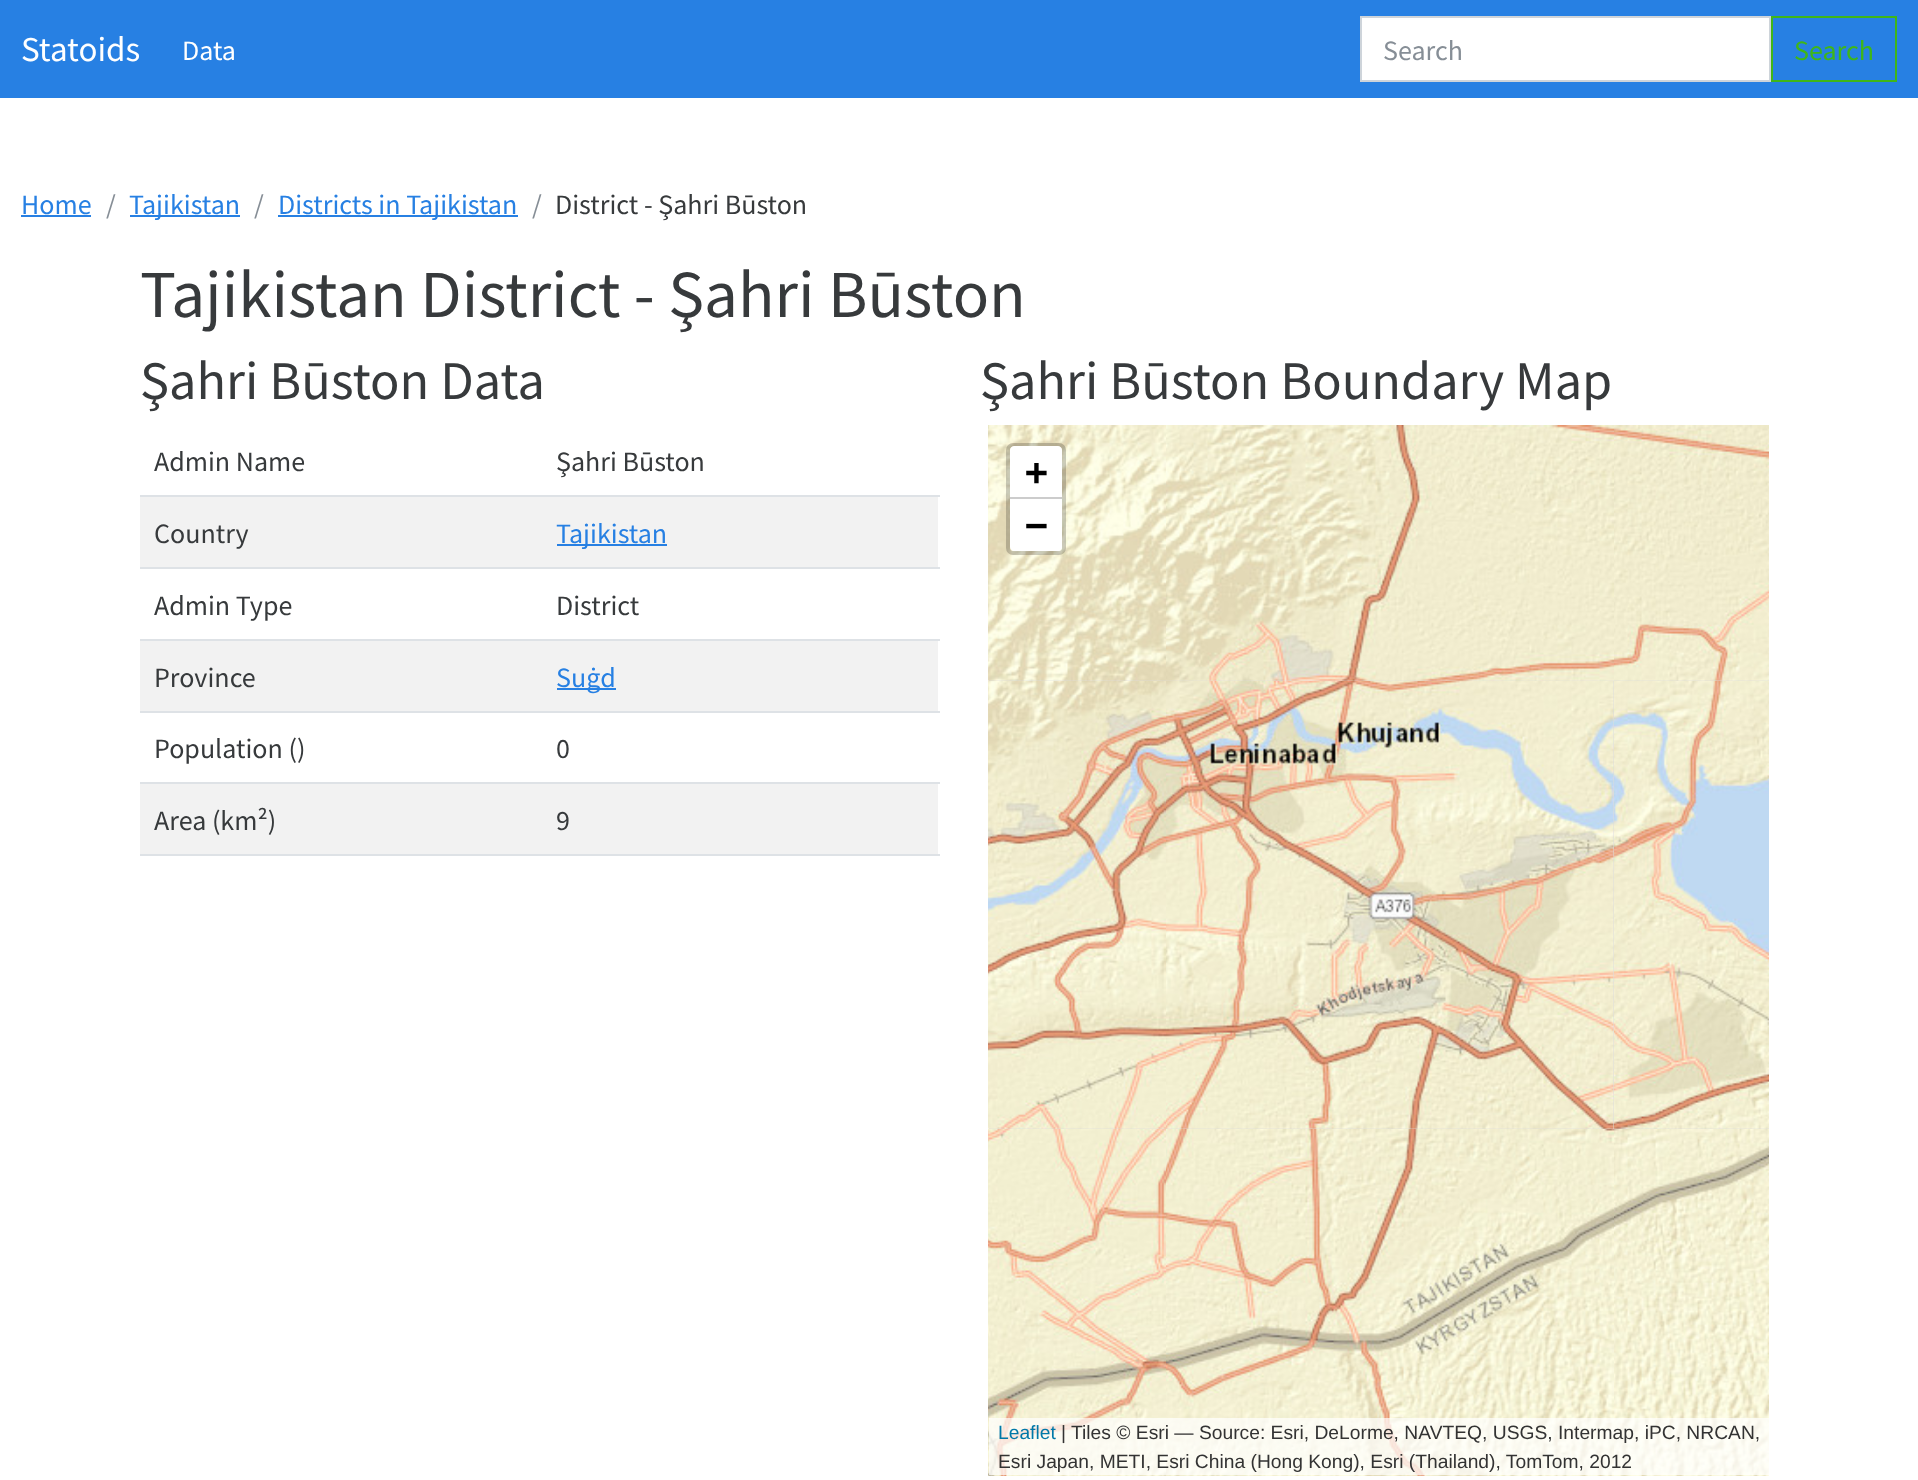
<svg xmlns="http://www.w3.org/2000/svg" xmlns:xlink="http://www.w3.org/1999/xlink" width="1918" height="1480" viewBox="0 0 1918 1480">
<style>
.cls-1{font:35px Source Sans Pro;fill:#ffffff}
.cls-2{font:28px Source Sans Pro;fill:#ffffff}
.cls-3{font:28px Source Sans Pro;fill:#868e96}
.cls-4{font:28px Source Sans Pro;fill:#3fb618}
.cls-5{font:28px Source Sans Pro;fill:#2780e3}
.cls-6{font:28px Source Sans Pro;fill:#373a3c}
.cls-7{font:67.25px Source Sans Pro;fill:#373a3c}
.cls-8{font:54.4px Source Sans Pro;fill:#373a3c}
.cls-9{font:bold 38px DejaVu Sans Mono;fill:#000000}
.cls-10{font:19.25px Liberation Sans;fill:#0078a8}
.cls-11{font:19.25px Liberation Sans;fill:#333333}
</style>
<rect width="100%" height="100%" fill="#ffffff"/>
<rect fill="#2780e3" x="0" y="0" width="1918" height="98"/>
<rect fill="#ffffff" stroke="#ced4da" stroke-width="2" x="1361" y="17" width="409" height="64"/>
<rect fill="none" stroke="#3fb618" stroke-width="2" x="1772" y="17" width="124" height="64"/>
<rect fill="#2780e3" x="21" y="215" width="70" height="2"/>
<rect fill="#2780e3" x="130" y="215" width="110" height="2"/>
<rect fill="#2780e3" x="278" y="215" width="240" height="2"/>
<rect fill="#dee2e6" x="140" y="495" width="800" height="2"/>
<rect fill="#f2f2f2" x="140" y="497" width="798" height="70"/>
<rect fill="#dee2e6" x="140" y="567" width="800" height="2"/>
<rect fill="#2780e3" x="557" y="544" width="110" height="2"/>
<rect fill="#dee2e6" x="140" y="639" width="800" height="2"/>
<rect fill="#f2f2f2" x="140" y="641" width="798" height="70"/>
<rect fill="#dee2e6" x="140" y="711" width="800" height="2"/>
<rect fill="#2780e3" x="557" y="688" width="59" height="2"/>
<rect fill="#dee2e6" x="140" y="782" width="800" height="2"/>
<rect fill="#f2f2f2" x="140" y="784" width="798" height="70"/>
<rect fill="#dee2e6" x="140" y="854" width="800" height="2"/>
<rect fill="#dddddd" x="989" y="680" width="780" height="449"/>
<image xlink:href="image4.png" x="1165" y="680" width="449" height="449"/>
<image xlink:href="image3.png" x="988" y="681" width="178" height="448"/>
<image xlink:href="image0.png" x="988" y="425" width="178" height="257"/>
<image xlink:href="image1.png" x="1166" y="425" width="448" height="257"/>
<image xlink:href="image2.png" x="1614" y="425" width="155" height="256"/>
<image xlink:href="image5.png" x="1614" y="681" width="155" height="448"/>
<image xlink:href="image6.png" x="988" y="1129" width="178" height="347"/>
<image xlink:href="image7.png" x="1166" y="1129" width="448" height="347"/>
<image xlink:href="image8.png" x="1614" y="1129" width="155" height="347"/>
<rect fill="none" stroke="#000000" stroke-opacity="0.2" stroke-width="4" x="1008" y="445" width="56" height="108" rx="5"/>
<path fill="#ffffff" d="M1014 446H1058C1060 446 1062 448 1062 450V499H1010V450C1010 448 1012 446 1014 446Z"/>
<rect fill="#cccccc" x="1010" y="497" width="52" height="2"/>
<path fill="#ffffff" d="M1010 499H1062V547C1062 549 1060 551 1058 551H1014C1012 551 1010 549 1010 547Z"/>
<rect fill="#ffffff" fill-opacity="0.7" x="989" y="1418" width="780" height="57"/>
<text class="cls-1" x="21" y="61">Statoids</text>
<text class="cls-2" x="182" y="60">Data</text>
<text class="cls-3" x="1383" y="60">Search</text>
<text class="cls-4" x="1794" y="60">Search</text>
<text class="cls-5" x="21" y="214">Home</text>
<text class="cls-3" x="106" y="214">/</text>
<text class="cls-5" x="129" y="214">Tajikistan</text>
<text class="cls-3" x="254" y="214">/</text>
<text class="cls-5" x="278" y="214">Districts in Tajikistan</text>
<text class="cls-3" x="532" y="214">/</text>
<text class="cls-6" x="555" y="214">District - Şahri Būston</text>
<text class="cls-7" x="140" y="317">Tajikistan District - Şahri Būston</text>
<text class="cls-8" x="140" y="399">Şahri Būston Data</text>
<text class="cls-6" x="154" y="471">Admin Name</text>
<text class="cls-6" x="556" y="471">Şahri Būston</text>
<text class="cls-6" x="154" y="543">Country</text>
<text class="cls-5" x="556" y="543">Tajikistan</text>
<text class="cls-6" x="154" y="615">Admin Type</text>
<text class="cls-6" x="556" y="615">District</text>
<text class="cls-6" x="154" y="687">Province</text>
<text class="cls-5" x="556" y="687">Suġd</text>
<text class="cls-6" x="154" y="758">Population ()</text>
<text class="cls-6" x="556" y="758">0</text>
<text class="cls-6" x="154" y="830">Area (km²)</text>
<text class="cls-6" x="556" y="830">9</text>
<text class="cls-8" x="980" y="399">Şahri Būston Boundary Map</text>
<text class="cls-9"><tspan x="1025" y="485">+</tspan><tspan x="1025" y="538">−</tspan></text>
<text class="cls-10" x="998" y="1439">Leaflet</text>
<text class="cls-11" x="1061" y="1439">| Tiles © Esri — Source: Esri, DeLorme, NAVTEQ, USGS, Intermap, iPC, NRCAN,</text>
<text class="cls-11" x="998" y="1468">Esri Japan, METI, Esri China (Hong Kong), Esri (Thailand), TomTom, 2012</text>
</svg>
